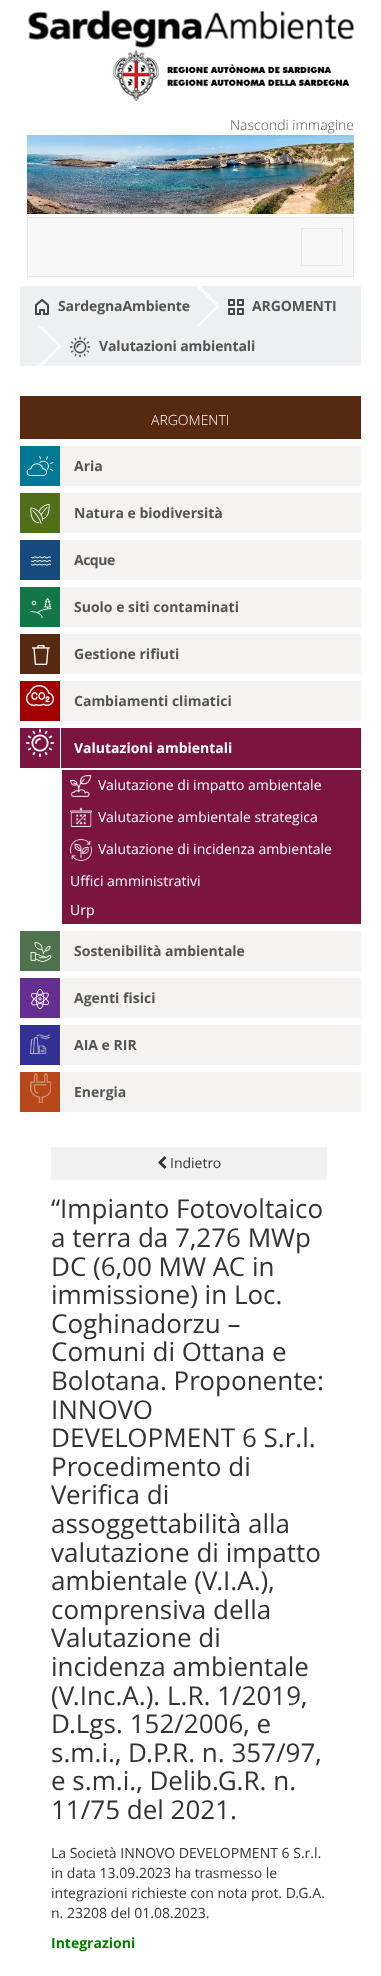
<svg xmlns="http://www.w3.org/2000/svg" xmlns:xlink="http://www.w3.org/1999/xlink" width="381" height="1976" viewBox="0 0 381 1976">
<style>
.cls-1{font:300 14px Open Sans;fill:#545454}
.cls-2{font:bold 14px Open Sans;letter-spacing:-0.1px;fill:#545454}
.cls-3{font:300 14px Open Sans;fill:#ffffff}
.cls-4{font:bold 14px Open Sans;fill:#545454}
.cls-5{font:bold 14px Open Sans;letter-spacing:-0.5px;fill:#545454}
.cls-6{font:bold 14px Open Sans;fill:#ffffff}
.cls-7{font:14px Open Sans;fill:#ffffff}
.cls-8{font:14px Open Sans;fill:#333333}
.cls-9{font:26px Open Sans;fill:#333333}
.cls-10{font:bold 14px Open Sans;fill:#008000}
</style>
<rect width="100%" height="100%" fill="#ffffff"/>
<image xlink:href="image0.png" x="28" y="10" width="326" height="38"/>
<image xlink:href="image1.png" x="112" y="50" width="238" height="51"/>
<image xlink:href="image2.png" x="27" y="135" width="327" height="79"/>
<rect fill="#f8f8f8" stroke="#e7e7e7" x="27.5" y="217.5" width="326" height="59"/>
<rect fill="none" stroke="#e7e7e7" x="301.5" y="228.5" width="41" height="37"/>
<rect fill="#edeff0" x="20" y="286" width="341" height="80" rx="2"/>
<image xlink:href="image3.png" x="35" y="299" width="14" height="16"/>
<image xlink:href="image4.png" x="196" y="286" width="24" height="40"/>
<image xlink:href="image5.png" x="228" y="299" width="16" height="16"/>
<image xlink:href="image4.png" x="38" y="326" width="24" height="40"/>
<image xlink:href="image6.png" x="69" y="336" width="22" height="22"/>
<rect fill="#572910" x="20" y="396" width="341" height="43"/>
<rect fill="#f4f3f2" x="61" y="446" width="300" height="40"/>
<rect fill="#027894" x="20" y="446" width="40" height="40"/>
<image xlink:href="image7.png" x="26" y="456" width="28" height="20"/>
<rect fill="#f4f3f2" x="61" y="493" width="300" height="40"/>
<rect fill="#4f6f18" x="20" y="493" width="40" height="40"/>
<image xlink:href="image8.png" x="30" y="504" width="20" height="20"/>
<rect fill="#f4f3f2" x="61" y="540" width="300" height="40"/>
<rect fill="#174a7c" x="20" y="540" width="40" height="40"/>
<image xlink:href="image9.png" x="31" y="556" width="20" height="10"/>
<rect fill="#f4f3f2" x="61" y="587" width="300" height="40"/>
<rect fill="#117746" x="20" y="587" width="40" height="40"/>
<image xlink:href="image10.png" x="30" y="598" width="22" height="20"/>
<rect fill="#f4f3f2" x="61" y="634" width="300" height="40"/>
<rect fill="#572910" x="20" y="634" width="40" height="40"/>
<image xlink:href="image11.png" x="32" y="645" width="18" height="20"/>
<rect fill="#f4f3f2" x="61" y="681" width="300" height="40"/>
<rect fill="#a20000" x="20" y="681" width="40" height="40"/>
<image xlink:href="image12.png" x="26" y="685" width="28" height="21"/>
<rect fill="#7b1441" x="20" y="728" width="341" height="40"/>
<rect fill="#ffffff" x="60" y="728" width="1" height="40"/>
<image xlink:href="image13.png" x="26" y="729" width="28" height="28"/>
<rect fill="#7b1441" x="62" y="770" width="299" height="154"/>
<image xlink:href="image14.png" x="70" y="775" width="22" height="22"/>
<image xlink:href="image15.png" x="70" y="807" width="22" height="20"/>
<image xlink:href="image16.png" x="70" y="839" width="22" height="22"/>
<rect fill="#f4f3f2" x="61" y="931" width="300" height="40"/>
<rect fill="#4e724e" x="20" y="931" width="40" height="40"/>
<image xlink:href="image17.png" x="30" y="942" width="22" height="20"/>
<rect fill="#f4f3f2" x="61" y="978" width="300" height="40"/>
<rect fill="#662e91" x="20" y="978" width="40" height="40"/>
<image xlink:href="image18.png" x="31" y="989" width="18" height="20"/>
<rect fill="#f4f3f2" x="61" y="1025" width="300" height="40"/>
<rect fill="#313293" x="20" y="1025" width="40" height="40"/>
<image xlink:href="image19.png" x="30" y="1034" width="20" height="21"/>
<rect fill="#f4f3f2" x="61" y="1072" width="300" height="40"/>
<rect fill="#b8471a" x="20" y="1072" width="40" height="40"/>
<image xlink:href="image20.png" x="30" y="1073" width="21" height="30"/>
<rect fill="#000000" fill-opacity="0.05" filter="blur(1px)" x="51" y="1148" width="276" height="32"/>
<rect fill="#f1f1f1" x="51" y="1148" width="276" height="31"/>
<rect fill="#f4f4f4" x="51" y="1147" width="276" height="1"/>
<image xlink:href="image21.png" x="158" y="1156" width="9" height="13"/>
<text class="cls-1" x="230" y="130">Nascondi immagine</text>
<text class="cls-2" x="58" y="311">SardegnaAmbiente</text>
<text class="cls-2" x="252" y="311">ARGOMENTI</text>
<text class="cls-2" x="99" y="351">Valutazioni ambientali</text>
<text class="cls-3" x="151" y="425">ARGOMENTI</text>
<text class="cls-4" x="74" y="471">Aria</text>
<text class="cls-4" x="74" y="518">Natura e biodiversità</text>
<text class="cls-5" x="74" y="565">Acque</text>
<text class="cls-4" x="74" y="612">Suolo e siti contaminati</text>
<text class="cls-4" x="74" y="659">Gestione rifiuti</text>
<text class="cls-4" x="74" y="706">Cambiamenti climatici</text>
<text class="cls-6" x="74" y="753">Valutazioni ambientali</text>
<text class="cls-7" x="98" y="790">Valutazione di impatto ambientale</text>
<text class="cls-7" x="98" y="822">Valutazione ambientale strategica</text>
<text class="cls-7" x="98" y="854">Valutazione di incidenza ambientale</text>
<text class="cls-7" x="70" y="886">Uffici amministrativi</text>
<text class="cls-7" x="70" y="915">Urp</text>
<text class="cls-4" x="74" y="956">Sostenibilità ambientale</text>
<text class="cls-4" x="74" y="1003">Agenti fisici</text>
<text class="cls-4" x="74" y="1050">AIA e RIR</text>
<text class="cls-4" x="74" y="1097">Energia</text>
<text class="cls-8" x="170" y="1168">Indietro</text>
<text class="cls-9"><tspan x="51" y="1218">“Impianto Fotovoltaico</tspan><tspan x="51" y="1247">a terra da 7,276 MWp</tspan><tspan x="51" y="1276">DC (6,00 MW AC in</tspan><tspan x="51" y="1304">immissione) in Loc.</tspan><tspan x="51" y="1333">Coghinadorzu –</tspan><tspan x="51" y="1361">Comuni di Ottana e</tspan><tspan x="51" y="1390">Bolotana. Proponente:</tspan><tspan x="51" y="1419">INNOVO</tspan><tspan x="51" y="1447">DEVELOPMENT 6 S.r.l.</tspan><tspan x="51" y="1476">Procedimento di</tspan><tspan x="51" y="1504">Verifica di</tspan><tspan x="51" y="1533">assoggettabilità alla</tspan><tspan x="51" y="1562">valutazione di impatto</tspan><tspan x="51" y="1590">ambientale (V.I.A.),</tspan><tspan x="51" y="1619">comprensiva della</tspan><tspan x="51" y="1647">Valutazione di</tspan><tspan x="51" y="1676">incidenza ambientale</tspan><tspan x="51" y="1705">(V.Inc.A.). L.R. 1/2019,</tspan><tspan x="51" y="1733">D.Lgs. 152/2006, e</tspan><tspan x="51" y="1762">s.m.i., D.P.R. n. 357/97,</tspan><tspan x="51" y="1790">e s.m.i., Delib.G.R. n.</tspan><tspan x="51" y="1819">11/75 del 2021.</tspan></text>
<text class="cls-8"><tspan x="51" y="1858">La Società INNOVO DEVELOPMENT 6 S.r.l.</tspan><tspan x="51" y="1878">in data 13.09.2023 ha trasmesso le</tspan><tspan x="51" y="1898">integrazioni richieste con nota prot. D.G.A.</tspan><tspan x="51" y="1918">n. 23208 del 01.08.2023.</tspan></text>
<text class="cls-10" x="51" y="1948">Integrazioni</text>
</svg>
